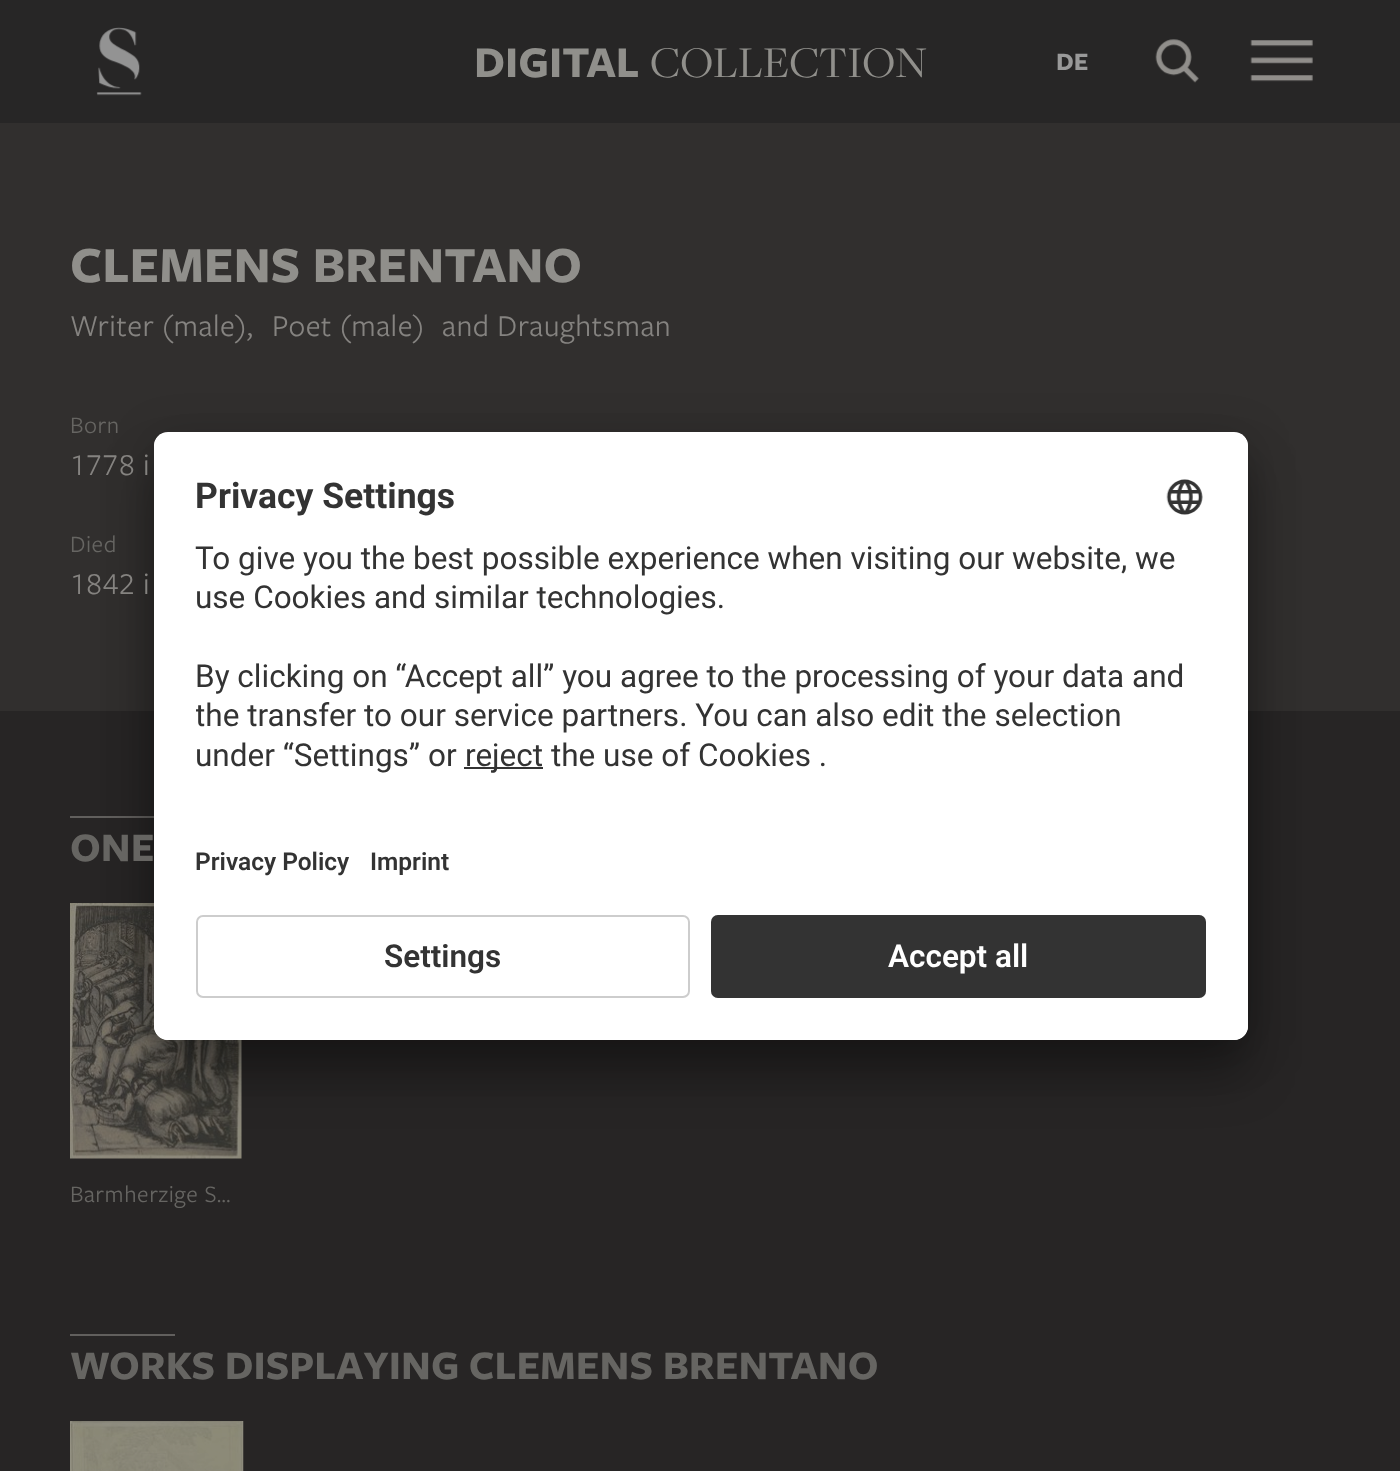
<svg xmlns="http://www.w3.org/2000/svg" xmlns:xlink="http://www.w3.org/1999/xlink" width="1400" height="1471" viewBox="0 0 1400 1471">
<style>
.cls-1{font:bold 45.5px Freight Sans;fill:#908f8b}
.cls-2{font:45.5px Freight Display;fill:#908f8b}
.cls-3{font:bold 26px Freight Sans;fill:#999999}
.cls-4{font:bold 52.5px Freight Sans;fill:#908f8b}
.cls-5{font:31.5px Freight Sans;letter-spacing:0.55px;fill:#858380}
.cls-6{font:24.5px Freight Sans;letter-spacing:0.55px;fill:#666562}
.cls-7{font:31.5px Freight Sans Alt;letter-spacing:0.55px;fill:#858380}
.cls-8{font:bold 42px Freight Sans;fill:#666562}
.cls-9{font:bold 35.5px Roboto;fill:#333333}
.cls-10{font:31.5px Roboto;fill:#333333}
.cls-11{font:600 24.5px Roboto;fill:#333333}
.cls-12{font:600 31.5px Roboto;fill:#333333}
.cls-13{font:600 31.5px Roboto;fill:#ffffff}
</style>
<defs>
<clipPath id="clip1"><rect x="154" y="432" width="1094" height="608" rx="14"/></clipPath>
<clipPath id="clip2"><path d="M168 432H1234C1241.5 432 1248 438.5 1248 446V901H154V446C154 438.5 160.5 432 168 432Z"/></clipPath>
<clipPath id="clip3"><rect x="196" y="532" width="1010" height="289"/></clipPath>
</defs>
<rect width="100%" height="100%" fill="#312f2e"/>
<rect fill="#272626" x="0" y="0" width="1400" height="123"/>
<image xlink:href="image0.png" x="96" y="27" width="46" height="69"/>
<image xlink:href="image1.png" x="1155" y="39" width="44" height="44"/>
<image xlink:href="image2.png" x="1250" y="40" width="63" height="42"/>
<rect fill="#272525" x="0" y="711" width="1400" height="760"/>
<rect fill="#615f5d" x="70" y="816" width="84" height="2"/>
<image xlink:href="image3.png" x="70" y="903" width="172" height="256"/>
<rect fill="#615f5d" x="70" y="1334" width="105" height="2"/>
<image xlink:href="image4.png" x="70" y="1421" width="174" height="50"/>
<rect fill="#000000" fill-opacity="0.3" filter="blur(24.5px)" x="154" y="467" width="1094" height="608" rx="14"/>
<rect fill="#000000" fill-opacity="0.22" filter="blur(23px)" x="154" y="441" width="1094" height="607" rx="14"/>
<rect fill="#ffffff" x="154" y="432" width="1094" height="608" rx="14"/>
<g clip-path="url(#clip1)">
<g clip-path="url(#clip2)">
<rect fill="#ffffff" x="154" y="434" width="1094" height="467"/>
</g>
</g>
<image xlink:href="image5.png" x="1166" y="479" width="37" height="36"/>
<rect fill="#333333" x="464" y="767" width="79" height="2"/>
<path fill="#ffffff" d="M154 901H1248V1026C1248 1033.5 1241.5 1040 1234 1040H168C160.5 1040 154 1033.5 154 1026Z"/>
<rect fill="none" stroke="#cdcdcd" stroke-width="2" x="197" y="916" width="492" height="81" rx="6"/>
<rect fill="#333333" x="711" y="915" width="495" height="83" rx="7"/>
<rect fill="none" stroke="#353535" stroke-opacity="0.25" stroke-width="2" x="712" y="916" width="493" height="81" rx="6"/>
<text class="cls-1" x="474" y="77">DIGITAL</text>
<text class="cls-2" x="650" y="77">COLLECTION</text>
<text class="cls-3" x="1056" y="70">DE</text>
<text class="cls-4" x="70" y="282">CLEMENS BRENTANO</text>
<text class="cls-5" x="70" y="336">Writer (male),</text>
<text class="cls-5" x="272" y="336">Poet (male)</text>
<text class="cls-5" x="442" y="336">and Draughtsman</text>
<text class="cls-6" x="70" y="433">Born</text>
<text class="cls-7" x="70" y="475">1778</text>
<text class="cls-5" x="143" y="475">i</text>
<text class="cls-6" x="70" y="552">Died</text>
<text class="cls-7" x="70" y="594">1842</text>
<text class="cls-5" x="143" y="594">i</text>
<text class="cls-8" x="70" y="861">ONE</text>
<text class="cls-6" x="70" y="1202">Barmherzige S…</text>
<text class="cls-8" x="70" y="1379">WORKS DISPLAYING CLEMENS BRENTANO</text>
<text class="cls-9" x="195" y="508">Privacy Settings</text>
<text class="cls-10"><tspan x="195" y="569">To give you the best possible experience when visiting our website, we</tspan><tspan x="195" y="608">use Cookies and similar technologies.</tspan></text>
<text class="cls-10" x="195" y="687">By clicking on “Accept all” you agree to the processing of your data and</text>
<g clip-path="url(#clip3)">
<text class="cls-10" x="195" y="726">the transfer to our service partners. You can also edit the selection</text>
</g>
<text class="cls-10" x="195" y="766">under “Settings” or</text>
<text class="cls-10" x="465" y="766">reject the use of Cookies .</text>
<text class="cls-11" x="195" y="870">Privacy Policy</text>
<text class="cls-11" x="370" y="870">Imprint</text>
<text class="cls-12" x="384" y="967">Settings</text>
<text class="cls-13" x="888" y="967">Accept all</text>
</svg>
